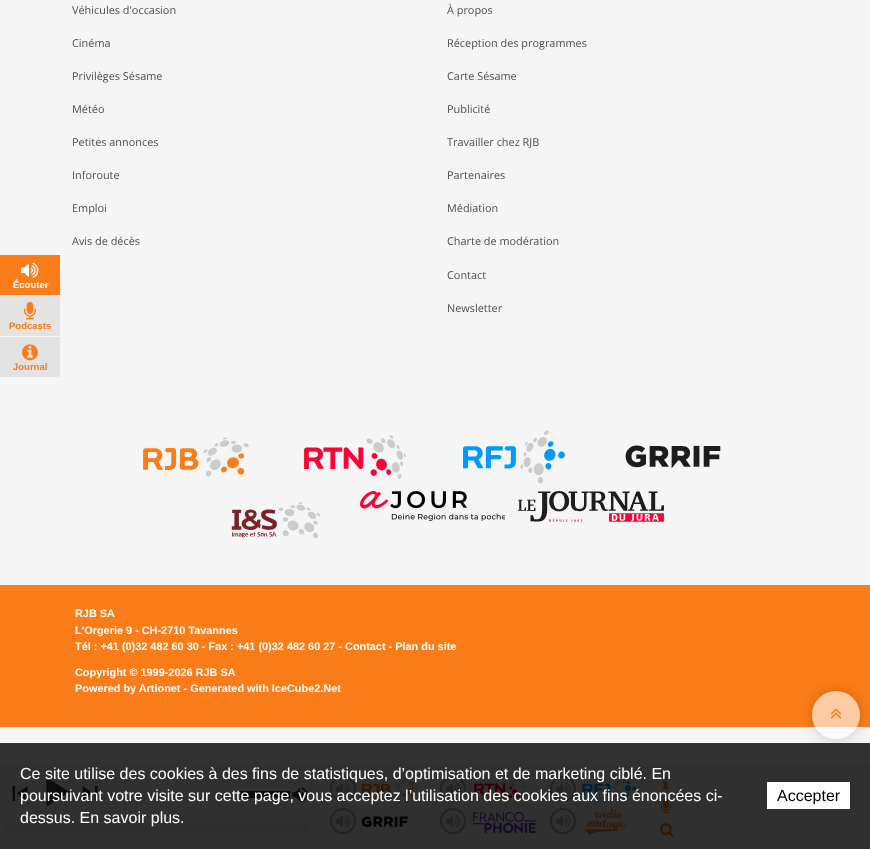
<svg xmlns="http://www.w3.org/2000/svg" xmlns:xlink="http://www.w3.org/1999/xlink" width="870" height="849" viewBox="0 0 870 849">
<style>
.cls-1{font:bold 9.5px Liberation Sans;fill:#ffffff}
.cls-2{font:bold 9.5px Liberation Sans;fill:#fb7d19}
.cls-3{font:10.9px Open Sans;fill:#4e4e4e}
.cls-4{font:bold 10.9px Liberation Sans;fill:#ffffff}
.cls-5{font:16px Liberation Sans;fill:#ffffff}
.cls-6{font:16px Liberation Sans;fill:#000000}
</style>
<defs>
<clipPath id="clip1"><path d="M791 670H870V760H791ZM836 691C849.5 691 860 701.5 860 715C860 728.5 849.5 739 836 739C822.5 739 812 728.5 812 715C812 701.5 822.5 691 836 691Z" clip-rule="evenodd"/></clipPath>
</defs>
<rect width="100%" height="100%" fill="#f5f5f5"/>
<rect fill="#fb7d19" x="0" y="255" width="60" height="40"/>
<image xlink:href="image0.png" x="21" y="263" width="18" height="15"/>
<rect fill="#e3e3e3" x="0" y="296" width="60" height="40"/>
<image xlink:href="image1.png" x="24" y="302" width="12" height="18"/>
<path fill="#e3e3e3" d="M0 337H60V374C60 375.5 58.5 377 57 377H0Z"/>
<image xlink:href="image2.png" x="22" y="344" width="16" height="17"/>
<image xlink:href="image3.png" x="143" y="437" width="106" height="40"/>
<image xlink:href="image4.png" x="304" y="435" width="102" height="44"/>
<image xlink:href="image5.png" x="463" y="430" width="102" height="54"/>
<image xlink:href="image6.png" x="625" y="445" width="96" height="24"/>
<image xlink:href="image7.png" x="231" y="502" width="90" height="37"/>
<image xlink:href="image8.png" x="360" y="491" width="145" height="30"/>
<image xlink:href="image9.png" x="518" y="491" width="146" height="31"/>
<rect fill="#fb7d19" x="0" y="585" width="870" height="142"/>
<g clip-path="url(#clip1)">
<rect fill="#000000" fill-opacity="0.2" filter="blur(6.5px)" x="812" y="691" width="48" height="48" rx="24"/>
</g>
<circle fill="#ffffff" fill-opacity="0.6" cx="836" cy="715" r="24"/>
<image xlink:href="image10.png" x="830" y="708" width="12" height="11"/>
<rect fill="#f0f0f0" x="0" y="768" width="870" height="80"/>
<rect fill="#e0e0e0" x="0" y="767" width="870" height="1"/>
<rect fill="#e0e0e0" x="0" y="848" width="870" height="1"/>
<image xlink:href="image11.png" x="12" y="786" width="16" height="15"/>
<path fill="#3c3c3c" d="M46.5 777.5L69.5 792L46.5 806.5Z"/>
<image xlink:href="image12.png" x="82" y="786" width="16" height="15"/>
<rect fill="#3c3c3c" x="240" y="791" width="50" height="7"/>
<image xlink:href="image13.png" x="292" y="787" width="16" height="15"/>
<rect fill="none" stroke="#e3e3e3" x="5.5" y="825.5" width="304" height="6"/>
<rect fill="#e3e3e3" x="6" y="826" width="303" height="5"/>
<image xlink:href="image14.png" x="361" y="778" width="57" height="21"/>
<circle fill="none" stroke="#a9a9a9" stroke-width="2" cx="343" cy="789" r="12"/>
<image xlink:href="image15.png" x="336" y="783" width="15" height="13"/>
<image xlink:href="image16.png" x="440" y="776" width="88" height="24"/>
<circle fill="#f0f0f0" stroke="#a9a9a9" stroke-width="2" cx="453" cy="789" r="12"/>
<image xlink:href="image15.png" x="446" y="783" width="15" height="13"/>
<image xlink:href="image17.png" x="582" y="775" width="54" height="29"/>
<circle fill="none" stroke="#a9a9a9" stroke-width="2" cx="563" cy="789" r="12"/>
<image xlink:href="image15.png" x="556" y="783" width="15" height="13"/>
<image xlink:href="image18.png" x="361" y="816" width="47" height="12"/>
<circle fill="none" stroke="#a9a9a9" stroke-width="2" cx="343" cy="821" r="12"/>
<image xlink:href="image15.png" x="336" y="815" width="15" height="13"/>
<image xlink:href="image19.png" x="440" y="812" width="96" height="22"/>
<circle fill="#f0f0f0" stroke="#a9a9a9" stroke-width="2" cx="453" cy="821" r="12"/>
<image xlink:href="image15.png" x="446" y="815" width="15" height="13"/>
<image xlink:href="image20.png" x="583" y="809" width="43" height="26"/>
<circle fill="none" stroke="#a9a9a9" stroke-width="2" cx="563" cy="821" r="12"/>
<image xlink:href="image15.png" x="556" y="815" width="15" height="13"/>
<image xlink:href="image21.png" x="663" y="777" width="6" height="12"/>
<image xlink:href="image22.png" x="661" y="799" width="10" height="15"/>
<image xlink:href="image23.png" x="660" y="823" width="14" height="15"/>
<rect fill="#000000" fill-opacity="0.8" x="0" y="743" width="870" height="106"/>
<rect fill="#ffffff" x="767" y="782" width="83" height="27"/>
<text class="cls-1" x="13" y="288">Écouter</text>
<text class="cls-2" x="9" y="329">Podcasts</text>
<text class="cls-2" x="13" y="370">Journal</text>
<text class="cls-3" x="72" y="14">Véhicules d'occasion</text>
<text class="cls-3" x="72" y="47">Cinéma</text>
<text class="cls-3" x="72" y="80">Privilèges Sésame</text>
<text class="cls-3" x="72" y="113">Météo</text>
<text class="cls-3" x="72" y="146">Petites annonces</text>
<text class="cls-3" x="72" y="179">Inforoute</text>
<text class="cls-3" x="72" y="212">Emploi</text>
<text class="cls-3" x="72" y="245">Avis de décès</text>
<text class="cls-3" x="447" y="14">À propos</text>
<text class="cls-3" x="447" y="47">Réception des programmes</text>
<text class="cls-3" x="447" y="80">Carte Sésame</text>
<text class="cls-3" x="447" y="113">Publicité</text>
<text class="cls-3" x="447" y="146">Travailler chez RJB</text>
<text class="cls-3" x="447" y="179">Partenaires</text>
<text class="cls-3" x="447" y="212">Médiation</text>
<text class="cls-3" x="447" y="245">Charte de modération</text>
<text class="cls-3" x="447" y="279">Contact</text>
<text class="cls-3" x="447" y="312">Newsletter</text>
<text class="cls-4"><tspan x="75" y="617">RJB SA</tspan><tspan x="75" y="634">L'Orgerie 9 - CH-2710 Tavannes</tspan><tspan x="75" y="650">Tél : +41 (0)32 482 60 30 - Fax : +41 (0)32 482 60 27 - Contact - Plan du site</tspan></text>
<text class="cls-4"><tspan x="75" y="676">Copyright © 1999-2026 RJB SA</tspan><tspan x="75" y="692">Powered by Artionet - Generated with IceCube2.Net</tspan></text>
<text class="cls-5"><tspan x="20" y="779">Ce site utilise des cookies à des fins de statistiques, d’optimisation et de marketing ciblé. En</tspan><tspan x="20" y="801">poursuivant votre visite sur cette page, vous acceptez l’utilisation des cookies aux fins énoncées ci-</tspan><tspan x="20" y="823">dessus. En savoir plus.</tspan></text>
<text class="cls-6" x="777" y="801">Accepter</text>
</svg>
